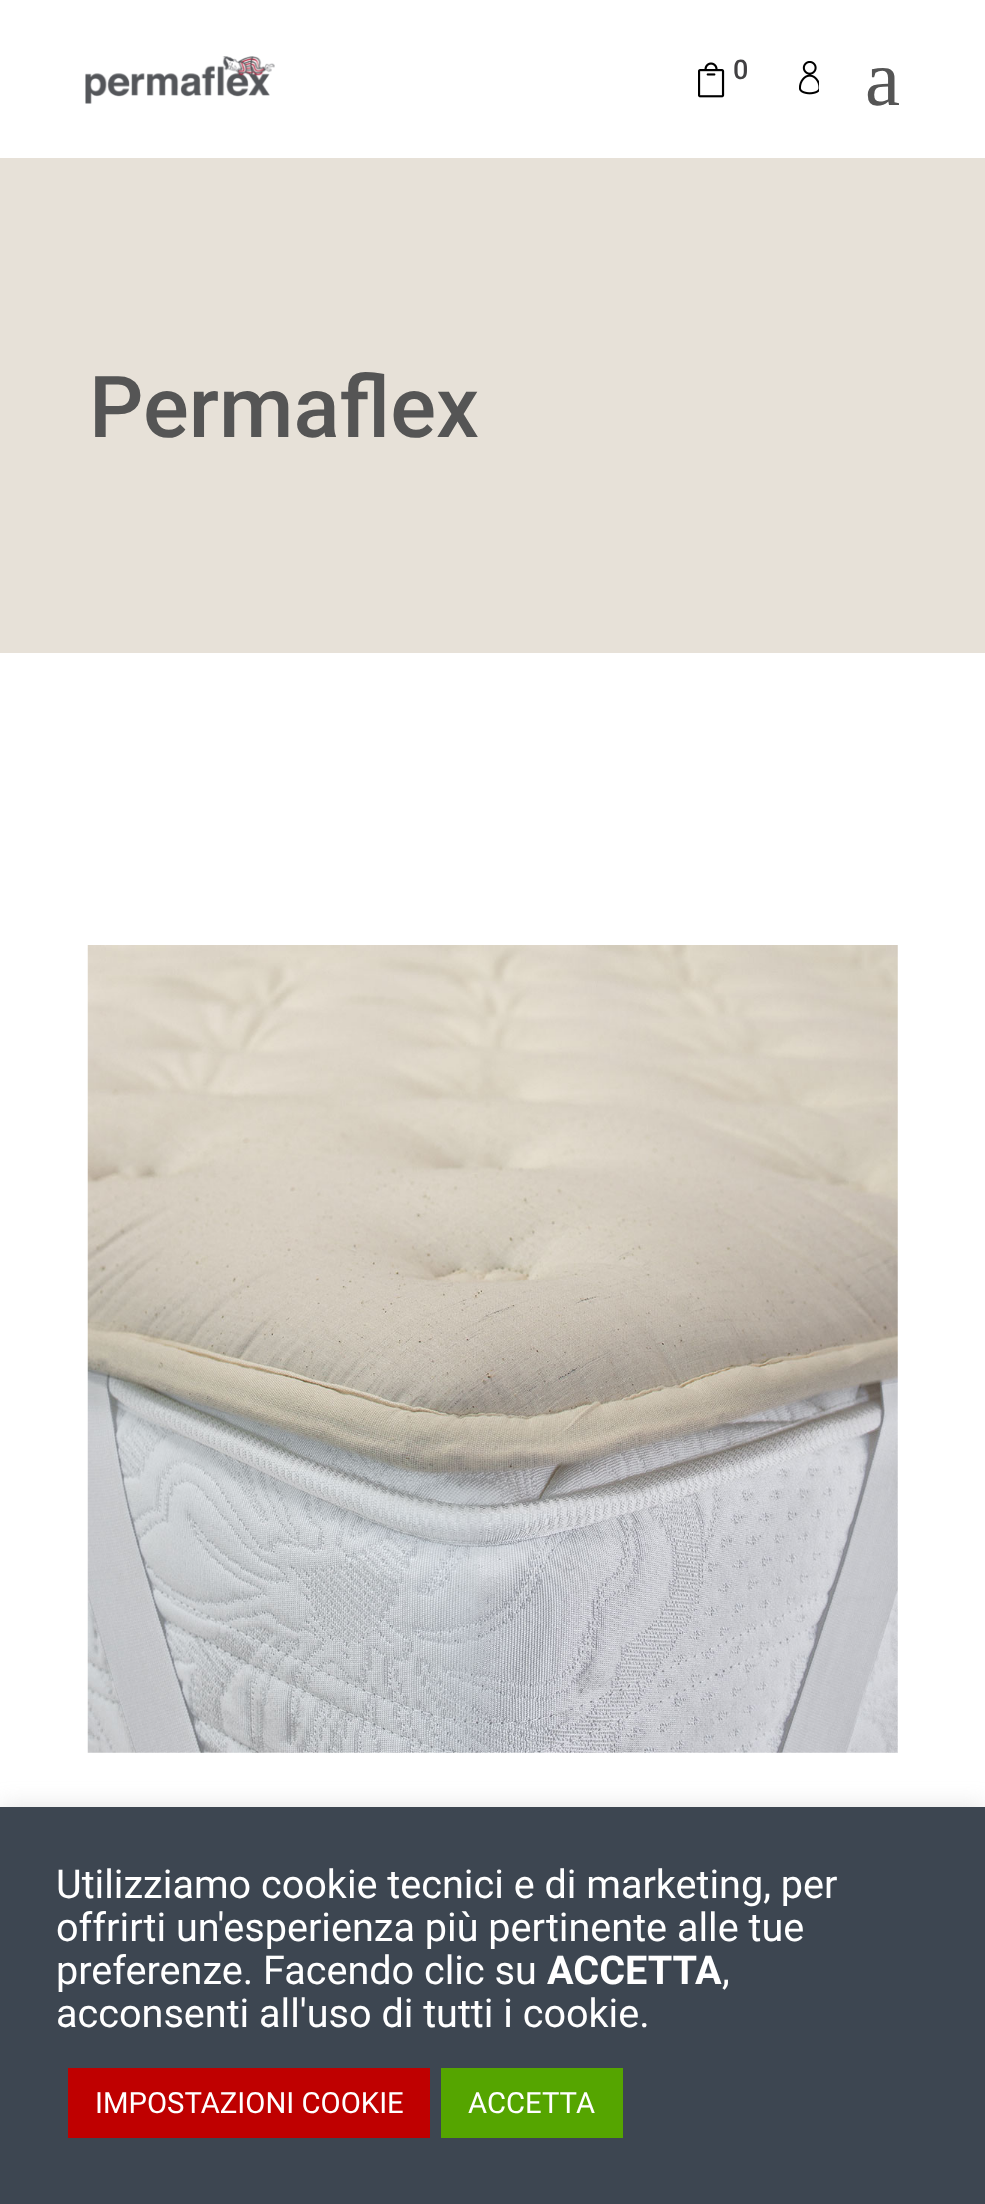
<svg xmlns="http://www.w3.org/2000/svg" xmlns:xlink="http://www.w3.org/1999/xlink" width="985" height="2204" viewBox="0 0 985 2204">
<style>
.cls-1{font:500 27px Roboto;fill:#414042}
.cls-2{font:79px Liberation Serif;fill:#555555}
.cls-3{font:500 85.5px Roboto;fill:#555555}
.cls-4{font:39.6px Roboto;fill:#ffffff}
.cls-5{font:bold 39.6px Roboto;fill:#ffffff}
.cls-6{font:29.25px Roboto;fill:#ffffff}
</style>
<rect width="100%" height="100%" fill="#ffffff"/>
<image xlink:href="image0.png" x="85" y="56" width="190" height="48"/>
<image xlink:href="image1.png" x="698" y="62" width="27" height="36"/>
<image xlink:href="image2.png" x="799" y="61" width="20" height="34"/>
<rect fill="#e7e1d8" x="0" y="158" width="985" height="495"/>
<image xlink:href="image3.png" x="87" y="945" width="811" height="808"/>
<rect fill="#acabab" fill-opacity="0.3" filter="blur(11px)" x="0" y="1805" width="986" height="398"/>
<rect fill="#3d4651" x="0" y="1807" width="985" height="397"/>
<rect fill="#bf0000" x="68" y="2068" width="362" height="70"/>
<rect fill="#55a500" x="441" y="2068" width="182" height="70"/>
<text class="cls-1" x="733" y="79">0</text>
<text class="cls-2" x="865" y="105">a</text>
<text class="cls-3" x="89" y="437">Permaflex</text>
<text class="cls-4"><tspan x="56" y="1898">Utilizziamo cookie tecnici e di marketing, per</tspan><tspan x="56" y="1941">offrirti un'esperienza più pertinente alle tue</tspan><tspan x="56" y="1984">preferenze. Facendo clic su</tspan></text>
<text class="cls-5" x="547" y="1984">ACCETTA</text>
<text class="cls-4" x="722" y="1984">,</text>
<text class="cls-4" x="56" y="2027">acconsenti all'uso di tutti i cookie.</text>
<text class="cls-6" x="95" y="2113">IMPOSTAZIONI COOKIE</text>
<text class="cls-6" x="468" y="2113">ACCETTA</text>
</svg>
